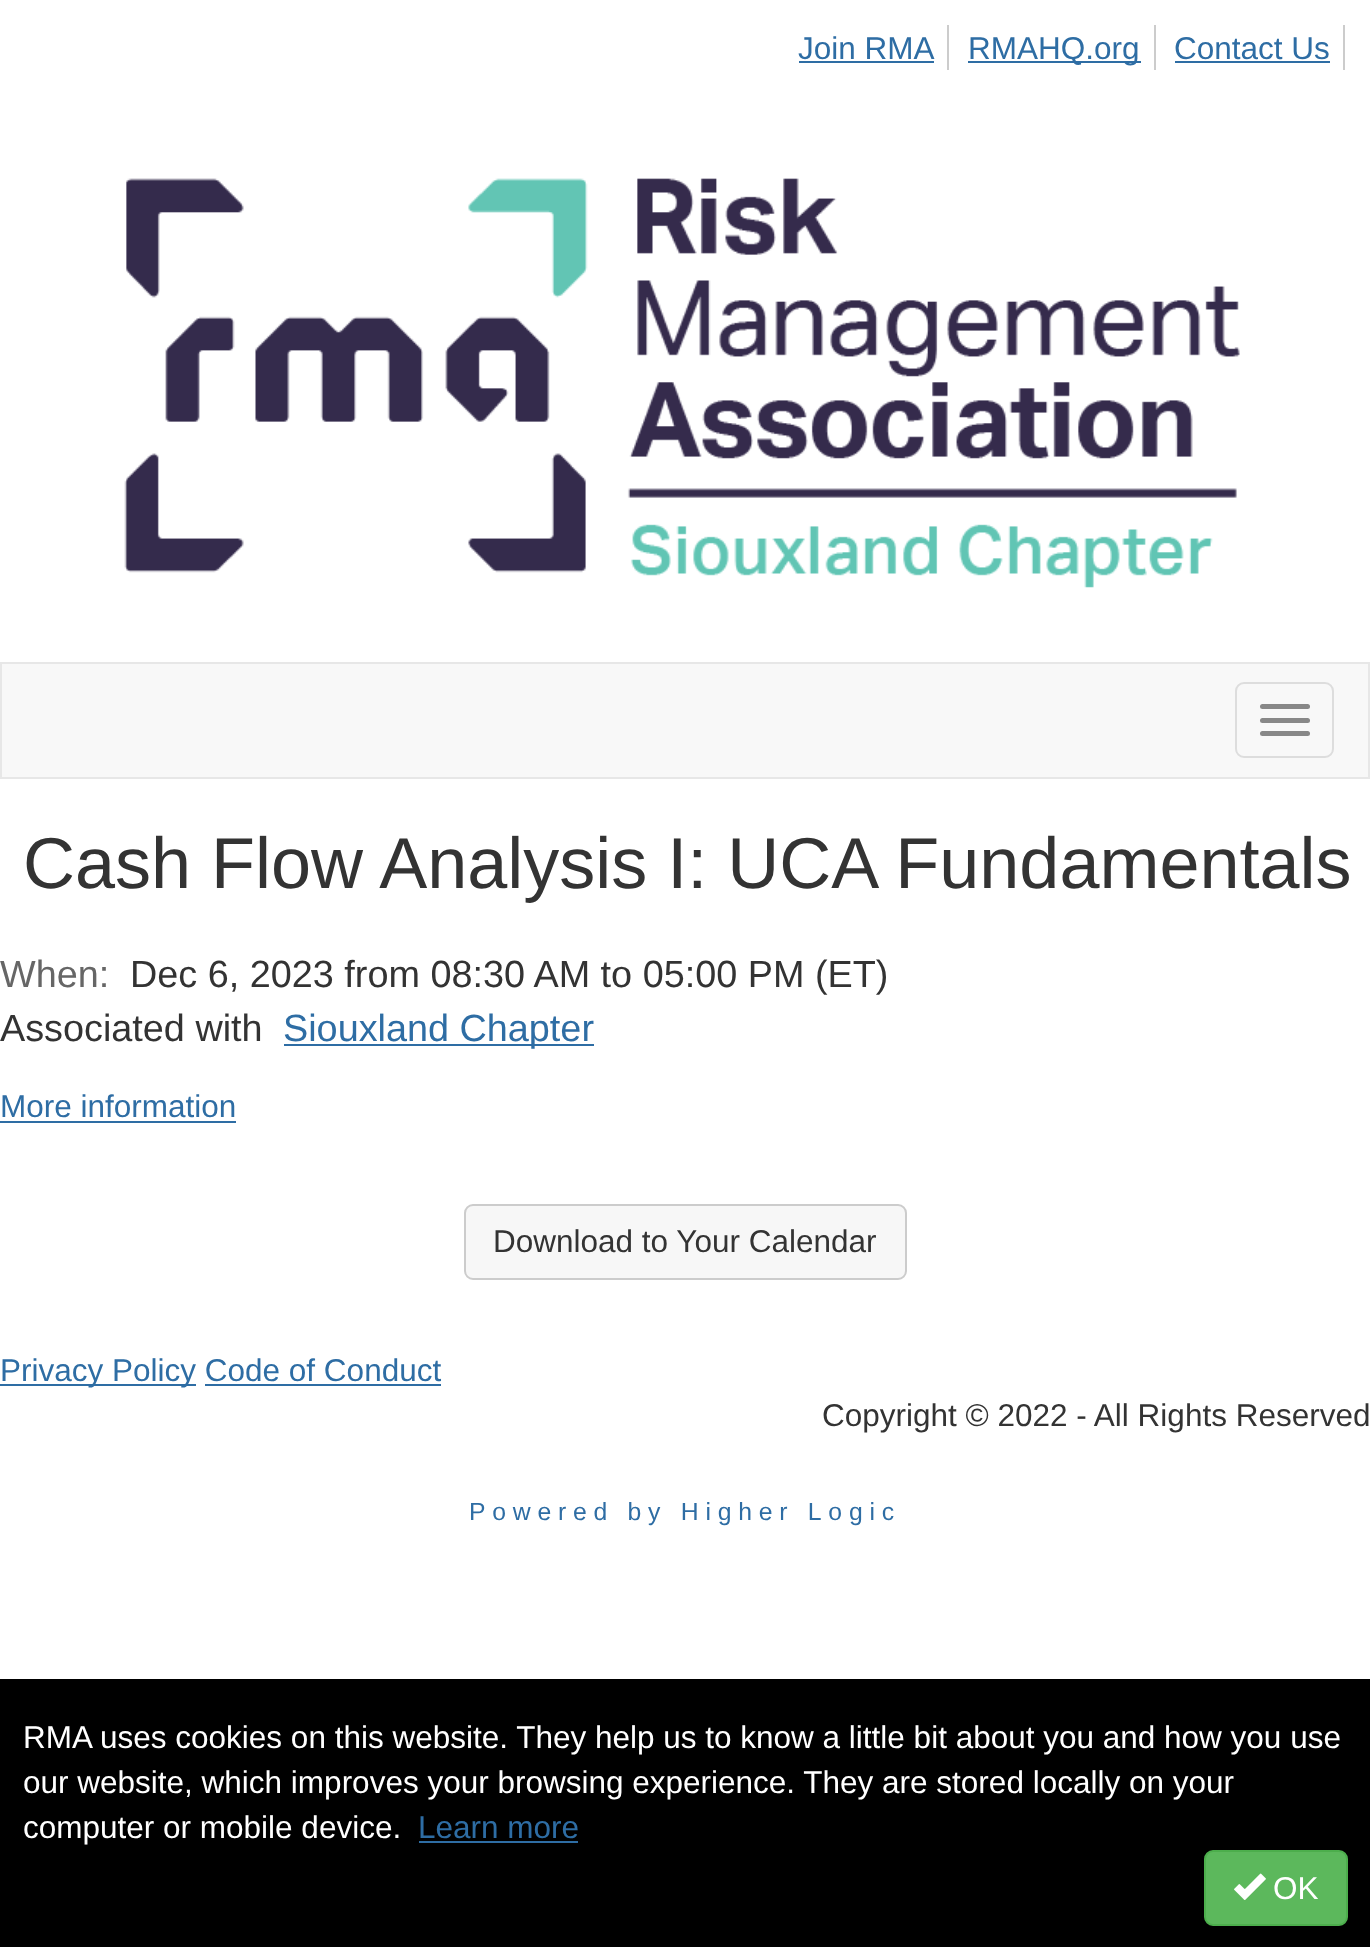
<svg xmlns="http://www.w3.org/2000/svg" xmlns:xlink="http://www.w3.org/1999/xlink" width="1370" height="1947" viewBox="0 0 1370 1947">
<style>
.cls-1{font:31.5px Liberation Sans;fill:#2e6da4}
.cls-2{font:72px Liberation Sans;fill:#333333}
.cls-3{font:37.8px Liberation Sans;fill:#666666}
.cls-4{font:37.8px Liberation Sans;fill:#333333}
.cls-5{font:37.8px Liberation Sans;fill:#2e6da4}
.cls-6{font:31.5px Liberation Sans;fill:#333333}
.cls-7{font:24.75px Liberation Sans;letter-spacing:6.75px;fill:#2e6da4}
.cls-8{font:31.5px Liberation Sans;fill:#ffffff}
</style>
<rect width="100%" height="100%" fill="#ffffff"/>
<rect fill="#cccccc" x="947" y="25" width="2" height="45"/>
<rect fill="#2e6da4" x="799" y="61" width="135" height="2"/>
<rect fill="#cccccc" x="1154" y="25" width="2" height="45"/>
<rect fill="#2e6da4" x="968" y="61" width="173" height="2"/>
<rect fill="#cccccc" x="1343" y="25" width="2" height="45"/>
<rect fill="#2e6da4" x="1175" y="61" width="155" height="2"/>
<image xlink:href="image0.png" x="124" y="178" width="1116" height="410"/>
<rect fill="#f8f8f8" stroke="#e7e7e7" stroke-width="2" x="1" y="663" width="1368" height="115"/>
<rect fill="none" stroke="#dddddd" stroke-width="2" x="1236" y="683" width="97" height="74" rx="8"/>
<rect fill="#888888" x="1260" y="704" width="50" height="5" rx="2.5"/>
<rect fill="#888888" x="1260" y="718" width="50" height="5" rx="2.5"/>
<rect fill="#888888" x="1260" y="731" width="50" height="5" rx="2.5"/>
<rect fill="#2e6da4" x="284" y="1044" width="310" height="2"/>
<rect fill="#2e6da4" x="0" y="1121" width="236" height="2"/>
<rect fill="#f7f7f7" stroke="#cccccc" stroke-width="2" x="465" y="1205" width="441" height="74" rx="8"/>
<rect fill="#2e6da4" x="0" y="1384" width="196" height="2"/>
<rect fill="#2e6da4" x="205" y="1384" width="236" height="2"/>
<rect fill="#000000" x="0" y="1679" width="1370" height="268"/>
<rect fill="#2e6da4" x="419" y="1841" width="159" height="2"/>
<rect fill="#5cb85c" stroke="#4cae4c" stroke-width="2" x="1205" y="1851" width="142" height="74" rx="8"/>
<image xlink:href="image1.png" x="1234" y="1873" width="32" height="27"/>
<text class="cls-1" x="798" y="59">Join RMA</text>
<text class="cls-1" x="968" y="59">RMAHQ.org</text>
<text class="cls-1" x="1174" y="59">Contact Us</text>
<text class="cls-2" x="23" y="888">Cash Flow Analysis I: UCA Fundamentals</text>
<text class="cls-3" x="0" y="987">When:</text>
<text class="cls-4" x="130" y="987">Dec 6, 2023 from 08:30 AM to 05:00 PM (ET)</text>
<text class="cls-4" x="0" y="1041">Associated with</text>
<text class="cls-5" x="283" y="1041">Siouxland Chapter</text>
<text class="cls-1" x="0" y="1117">More information</text>
<text class="cls-6" x="493" y="1252">Download to Your Calendar</text>
<text class="cls-1" x="0" y="1381">Privacy Policy Code of Conduct</text>
<text class="cls-6" x="822" y="1426">Copyright © 2022 - All Rights Reserved</text>
<text class="cls-7" x="469" y="1520">Powered by Higher Logic</text>
<text class="cls-8"><tspan x="23" y="1748">RMA uses cookies on this website. They help us to know a little bit about you and how you use</tspan><tspan x="23" y="1793">our website, which improves your browsing experience. They are stored locally on your</tspan><tspan x="23" y="1838">computer or mobile device.</tspan></text>
<text class="cls-1" x="418" y="1838">Learn more</text>
<text class="cls-8" x="1273" y="1899">OK</text>
</svg>
